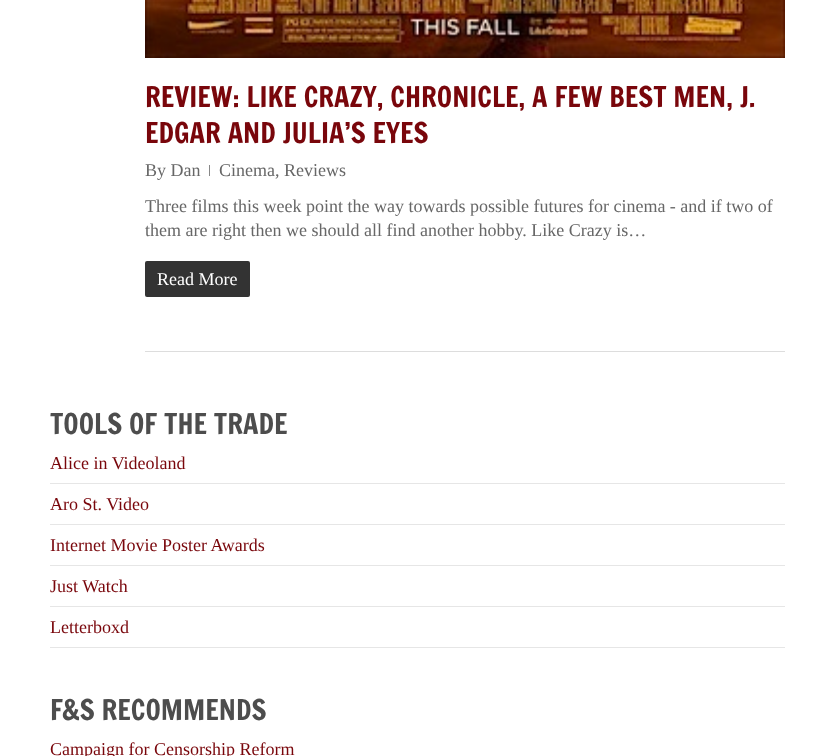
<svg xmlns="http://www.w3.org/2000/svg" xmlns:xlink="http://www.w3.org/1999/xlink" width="835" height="756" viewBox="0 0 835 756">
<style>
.cls-1{font:28px Francois One;fill:#79060b}
.cls-2{font:18px Liberation Serif;fill:#676767}
.cls-3{font:18px Liberation Serif;fill:#ffffff}
.cls-4{font:28px Francois One;fill:#4d4d4d}
.cls-5{font:18px Liberation Serif;fill:#79060b}
</style>
<rect width="100%" height="100%" fill="#ffffff"/>
<rect fill="#dddddd" x="145" y="351" width="640" height="1"/>
<image xlink:href="image0.png" x="145" y="0" width="640" height="58"/>
<rect fill="#888888" x="209" y="165" width="1" height="11"/>
<rect fill="#333333" x="145" y="261" width="105" height="36" rx="2"/>
<rect fill="#e6e6e6" x="50" y="483" width="735" height="1"/>
<rect fill="#e6e6e6" x="50" y="524" width="735" height="1"/>
<rect fill="#e6e6e6" x="50" y="565" width="735" height="1"/>
<rect fill="#e6e6e6" x="50" y="606" width="735" height="1"/>
<rect fill="#e6e6e6" x="50" y="647" width="735" height="1"/>
<text class="cls-1"><tspan x="145" y="107">REVIEW: LIKE CRAZY, CHRONICLE, A FEW BEST MEN, J.</tspan><tspan x="145" y="143">EDGAR AND JULIA’S EYES</tspan></text>
<text class="cls-2" x="145" y="176">By Dan</text>
<text class="cls-2" x="219" y="176">Cinema, Reviews</text>
<text class="cls-2"><tspan x="145" y="212">Three films this week point the way towards possible futures for cinema - and if two of</tspan><tspan x="145" y="236">them are right then we should all find another hobby. Like Crazy is…</tspan></text>
<text class="cls-3" x="157" y="285">Read More</text>
<text class="cls-4" x="50" y="434">TOOLS OF THE TRADE</text>
<text class="cls-5" x="50" y="469">Alice in Videoland</text>
<text class="cls-5" x="50" y="510">Aro St. Video</text>
<text class="cls-5" x="50" y="551">Internet Movie Poster Awards</text>
<text class="cls-5" x="50" y="592">Just Watch</text>
<text class="cls-5" x="50" y="633">Letterboxd</text>
<text class="cls-4" x="50" y="720">F&amp;S RECOMMENDS</text>
<text class="cls-5" x="50" y="755">Campaign for Censorship Reform</text>
</svg>
